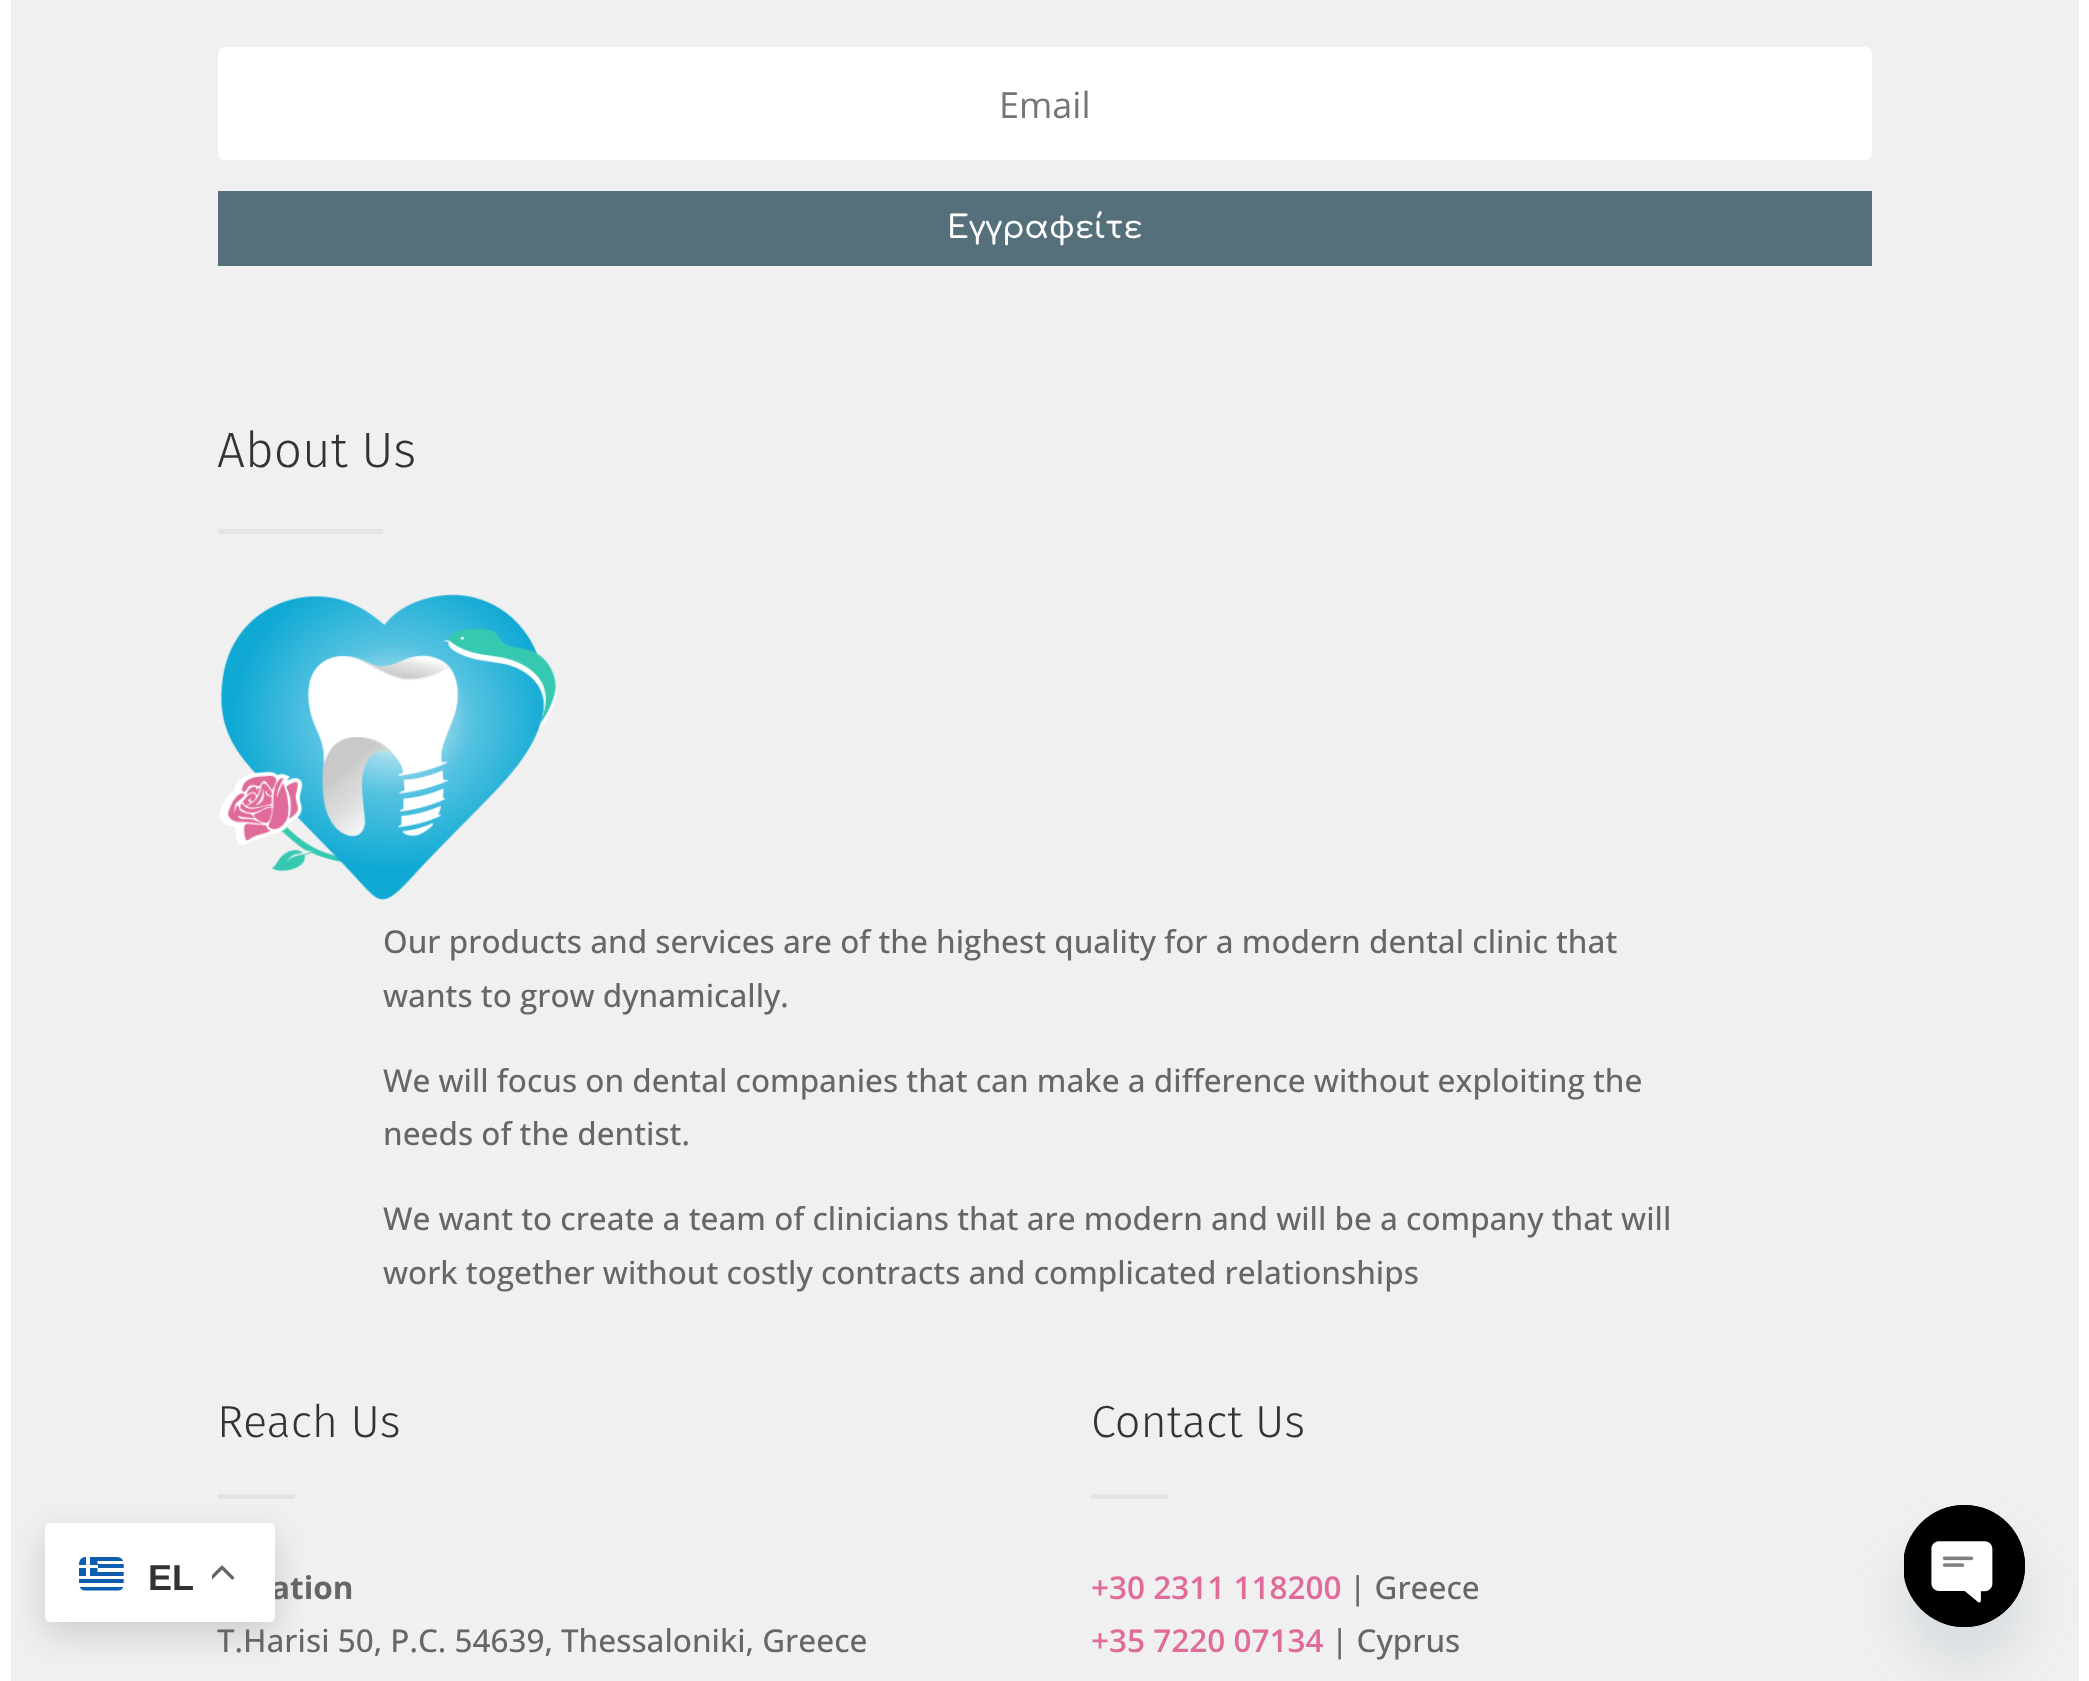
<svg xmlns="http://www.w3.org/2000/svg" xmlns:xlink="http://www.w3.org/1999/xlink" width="2089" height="1681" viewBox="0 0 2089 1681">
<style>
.cls-1{font:36px Open Sans;fill:#757575}
.cls-2{font:600 31.5px Comfortaa;fill:#ffffff}
.cls-3{font:300 49.5px Fira Sans;fill:#333333}
.cls-4{font:500 31.5px Open Sans;fill:#666666}
.cls-5{font:300 45px Fira Sans;fill:#333333}
.cls-6{font:bold 31.5px Open Sans;fill:#666666}
.cls-7{font:bold 36px Liberation Sans;fill:#333333}
.cls-8{font:600 31.5px Open Sans;fill:#e06b9a}
</style>
<rect width="100%" height="100%" fill="#ffffff"/>
<rect fill="#f0f0f0" x="11" y="0" width="2068" height="1681"/>
<rect fill="#e4e4e4" x="218" y="1494" width="77" height="5"/>
<rect fill="#000000" fill-opacity="0.15" filter="blur(17px)" x="45" y="1535" width="230" height="99" rx="5"/>
<rect fill="#ffffff" x="218" y="47" width="1654" height="113" rx="7"/>
<rect fill="#55707b" x="218" y="191" width="1654" height="75"/>
<rect fill="#e4e4e4" x="218" y="529" width="165" height="5"/>
<image xlink:href="image2.png" x="219" y="594" width="337" height="306"/>
<rect fill="#e4e4e4" x="1091" y="1494" width="77" height="5"/>
<rect fill="#49687e" fill-opacity="0.16" filter="blur(27px)" x="1904" y="1541" width="121" height="122" rx="60.5"/>
<rect fill="#000000" x="1904" y="1505" width="121" height="122" rx="60.5"/>
<image xlink:href="image3.png" x="1904" y="1505" width="121" height="122"/>
<text class="cls-1" x="999" y="118">Email</text>
<text class="cls-2" x="947" y="238">Εγγραφείτε</text>
<text class="cls-3" x="217" y="467">About Us</text>
<text class="cls-4"><tspan x="383" y="953">Our products and services are of the highest quality for a modern dental clinic that</tspan><tspan x="383" y="1007">wants to grow dynamically.</tspan></text>
<text class="cls-4"><tspan x="383" y="1092">We will focus on dental companies that can make a difference without exploiting the</tspan><tspan x="383" y="1145">needs of the dentist.</tspan></text>
<text class="cls-4"><tspan x="383" y="1230">We want to create a team of clinicians that are modern and will be a company that will</tspan><tspan x="383" y="1284">work together without costly contracts and complicated relationships</tspan></text>
<text class="cls-5" x="217" y="1437">Reach Us</text>
<text class="cls-6" x="271" y="1599">ation</text>
<rect fill="#ffffff" x="45" y="1523" width="230" height="99" rx="5"/>
<image xlink:href="image1.png" x="212" y="1565" width="23" height="15"/>
<text class="cls-7" x="148" y="1590">EL</text>
<image xlink:href="image0.png" x="79" y="1557" width="45" height="34"/>
<text class="cls-4" x="217" y="1652">T.Harisi 50, P.C. 54639, Thessaloniki, Greece</text>
<text class="cls-5" x="1091" y="1437">Contact Us</text>
<text class="cls-8" x="1091" y="1599">+30 2311 118200</text>
<text class="cls-4" x="1349" y="1599">| Greece</text>
<text class="cls-8" x="1091" y="1652">+35 7220 07134</text>
<text class="cls-4" x="1331" y="1652">| Cyprus</text>
</svg>
